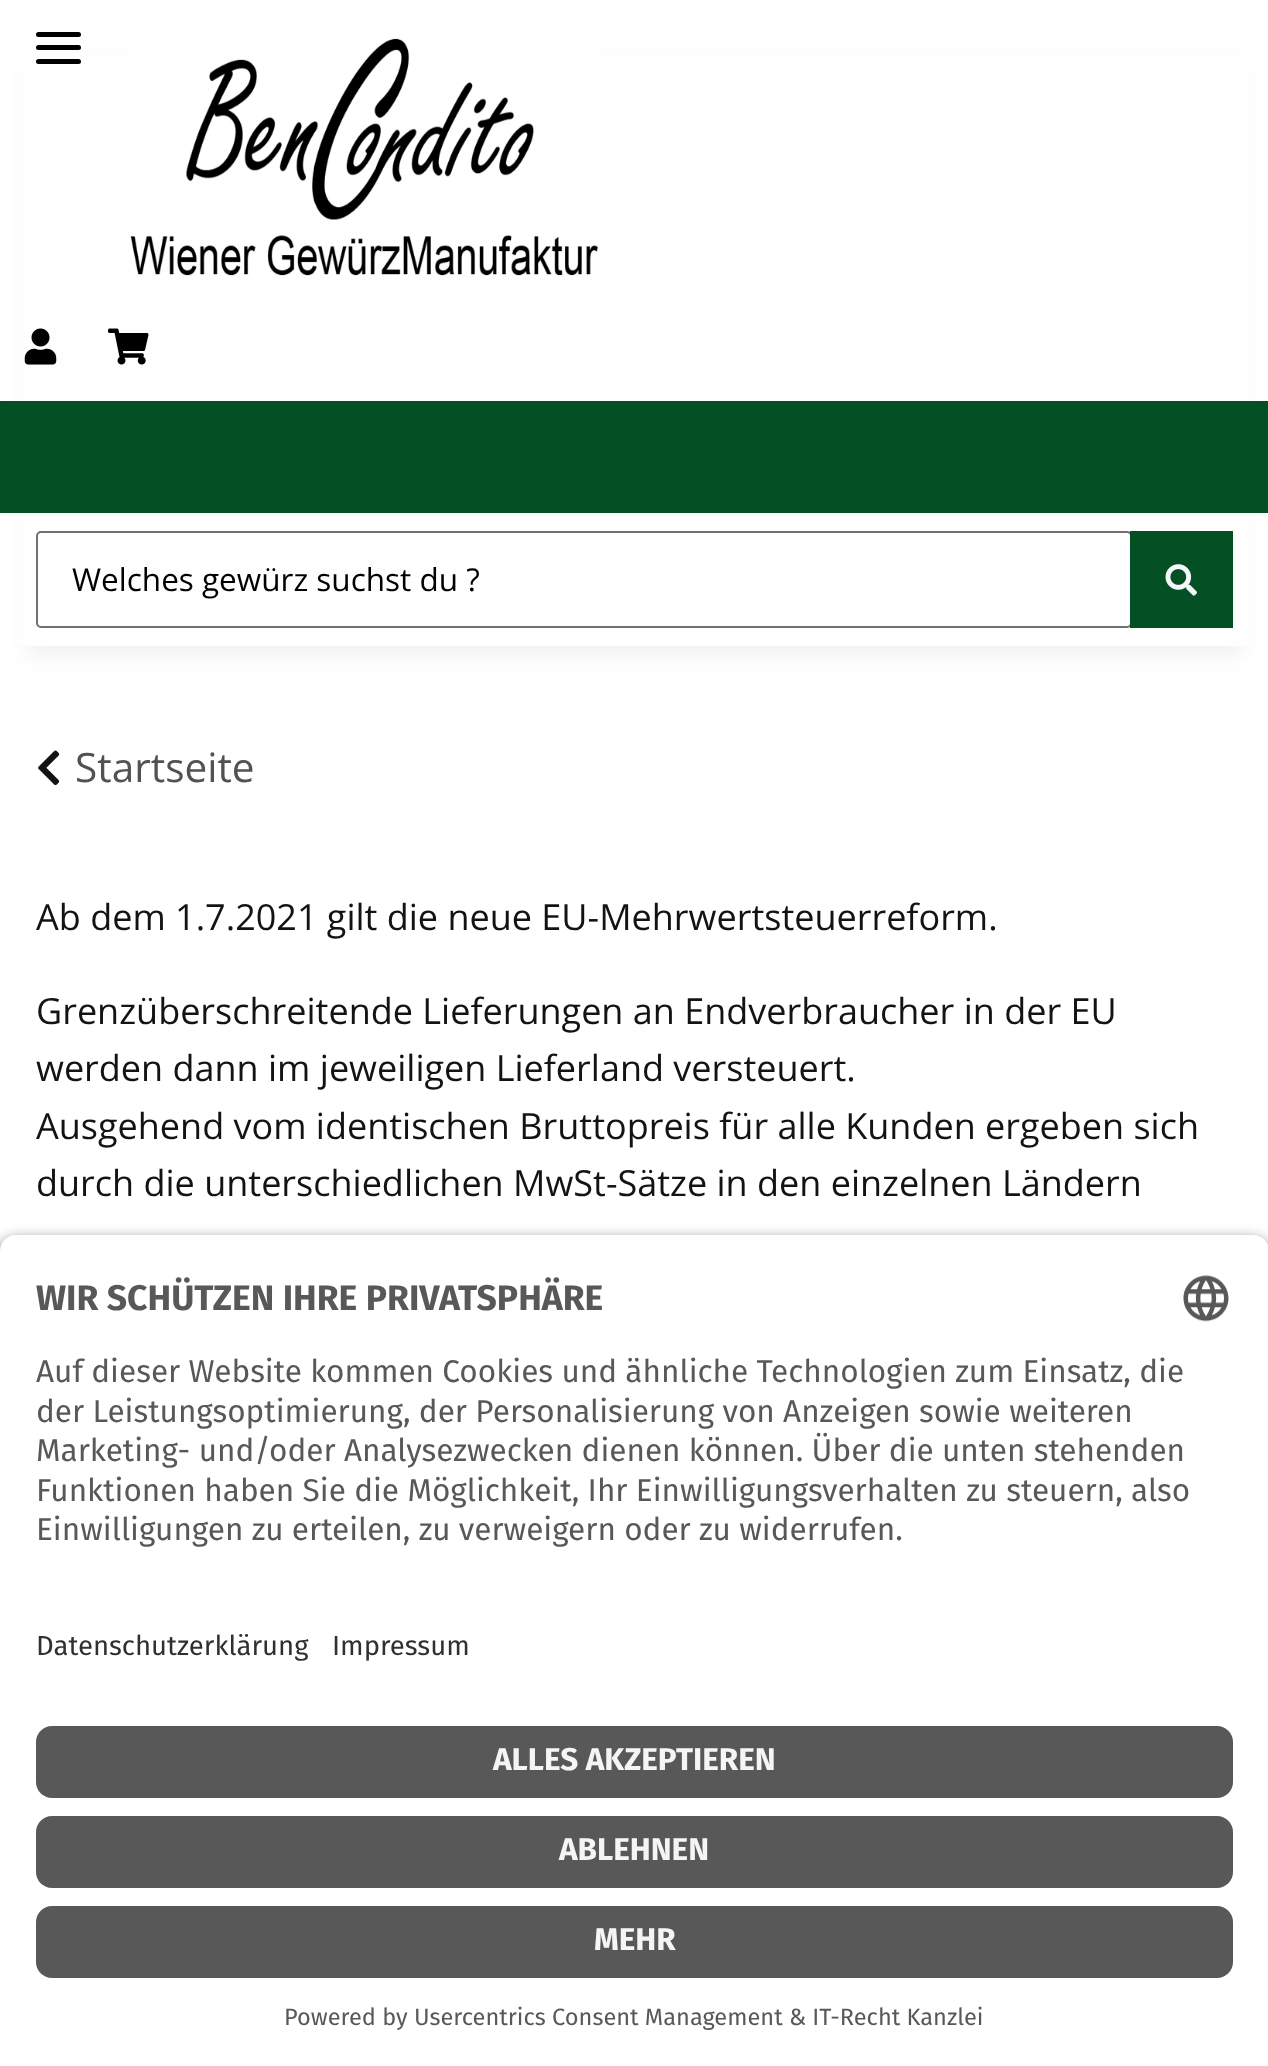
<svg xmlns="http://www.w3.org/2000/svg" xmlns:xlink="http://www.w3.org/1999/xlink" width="1268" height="2066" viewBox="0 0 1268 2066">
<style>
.cls-1{font:31.5px Open Sans;fill:#000000}
.cls-2{font:40.5px Open Sans;fill:#525252}
.cls-3{font:36px Open Sans;fill:#131314}
.cls-4{font:bold 35.5px Fira Sans;fill:#595857}
.cls-5{font:31.5px Fira Sans;fill:#595857}
.cls-6{font:27.5px Fira Sans;fill:#303030}
.cls-7{font:bold 31.5px Fira Sans;fill:#f5f5f5}
.cls-8{font:23.6px Fira Sans;fill:#595857}
</style>
<rect width="100%" height="100%" fill="#ffffff"/>
<rect fill="#000000" fill-opacity="0.06" filter="blur(10px)" x="27" y="63" width="1215" height="592"/>
<rect fill="#fffefe" x="17" y="53" width="1235" height="593"/>
<rect fill="#000000" x="36" y="45" width="45" height="5" rx="2.5"/>
<rect fill="#000000" x="36" y="32" width="45" height="5" rx="2.5"/>
<rect fill="#000000" x="36" y="59" width="45" height="5" rx="2.5"/>
<image xlink:href="image0.png" x="130" y="38" width="469" height="238"/>
<image xlink:href="image1.png" x="24" y="328" width="33" height="37"/>
<image xlink:href="image2.png" x="108" y="328" width="41" height="37"/>
<rect fill="#045024" x="0" y="401" width="1268" height="112"/>
<rect fill="none" stroke="#707070" stroke-width="2" x="37" y="532" width="1094" height="95" rx="4"/>
<rect fill="#045024" x="1130" y="531" width="103" height="97"/>
<image xlink:href="image3.png" x="1165" y="564" width="32" height="32"/>
<image xlink:href="image4.png" x="38" y="750" width="22" height="35"/>
<rect fill="#000000" fill-opacity="0.8" filter="blur(8px)" x="0" y="1242" width="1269" height="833" rx="16"/>
<path fill="#ffffff" d="M16 1235H1253C1262 1235 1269 1242 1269 1251V1595H0V1251C0 1242 7 1235 16 1235Z"/>
<image xlink:href="image5.png" x="1183" y="1275" width="46" height="47"/>
<rect fill="#ffffff" x="0" y="1595" width="1268" height="471"/>
<rect fill="#585858" x="36" y="1726" width="1197" height="72" rx="16"/>
<rect fill="#585858" x="36" y="1816" width="1197" height="72" rx="16"/>
<rect fill="#585858" x="36" y="1906" width="1197" height="72" rx="16"/>
<text class="cls-1" x="72" y="591">Welches gewürz suchst du ?</text>
<text class="cls-2" x="75" y="782">Startseite</text>
<text class="cls-3" x="36" y="930">Ab dem 1.7.2021 gilt die neue EU-Mehrwertsteuerreform.</text>
<text class="cls-3"><tspan x="36" y="1024">Grenzüberschreitende Lieferungen an Endverbraucher in der EU</tspan><tspan x="36" y="1081">werden dann im jeweiligen Lieferland versteuert.</tspan><tspan x="36" y="1139">Ausgehend vom identischen Bruttopreis für alle Kunden ergeben sich</tspan><tspan x="36" y="1196">durch die unterschiedlichen MwSt-Sätze in den einzelnen Ländern</tspan></text>
<text class="cls-4" x="36" y="1310">WIR SCHÜTZEN IHRE PRIVATSPHÄRE</text>
<text class="cls-5"><tspan x="36" y="1382">Auf dieser Website kommen Cookies und ähnliche Technologien zum Einsatz, die</tspan><tspan x="36" y="1422">der Leistungsoptimierung, der Personalisierung von Anzeigen sowie weiteren</tspan><tspan x="36" y="1461">Marketing- und/oder Analysezwecken dienen können. Über die unten stehenden</tspan><tspan x="36" y="1501">Funktionen haben Sie die Möglichkeit, Ihr Einwilligungsverhalten zu steuern, also</tspan><tspan x="36" y="1540">Einwilligungen zu erteilen, zu verweigern oder zu widerrufen.</tspan></text>
<text class="cls-6" x="36" y="1655">Datenschutzerklärung</text>
<text class="cls-6" x="332" y="1655">Impressum</text>
<text class="cls-7" x="493" y="1770">ALLES AKZEPTIEREN</text>
<text class="cls-7" x="559" y="1860">ABLEHNEN</text>
<text class="cls-7" x="594" y="1950">MEHR</text>
<text class="cls-8" x="284" y="2025">Powered by Usercentrics Consent Management &amp; IT-Recht Kanzlei</text>
</svg>
